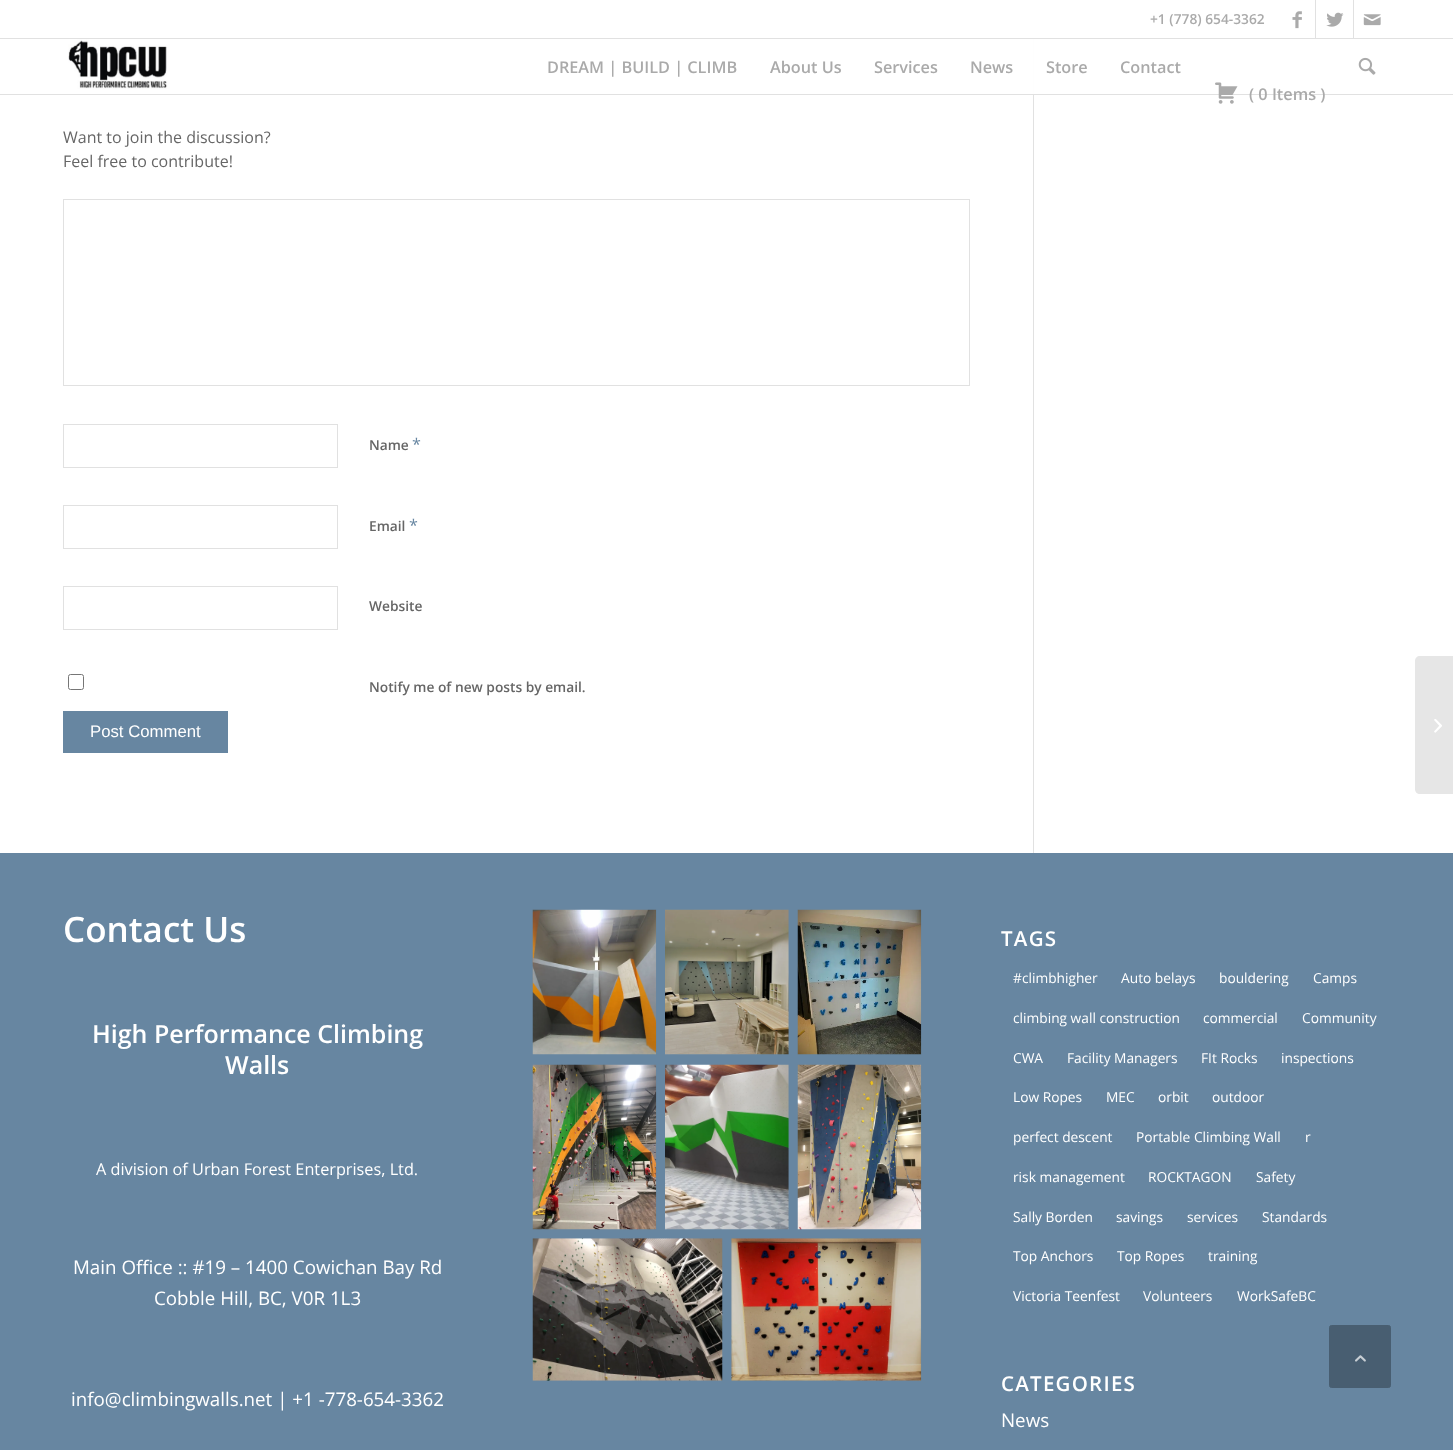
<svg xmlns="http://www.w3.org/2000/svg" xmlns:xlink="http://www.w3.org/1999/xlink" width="1453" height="1450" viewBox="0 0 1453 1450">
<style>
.cls-1{font:600 13.75px Open Sans;fill:#aaaaaa}
.cls-2{font:600 16.25px Open Sans;fill:#aaaaaa}
.cls-3{font:16px Open Sans;fill:#666666}
.cls-4{font:600 13.75px Open Sans;fill:#666666}
.cls-5{font:16.25px Open Sans;fill:#6786a1}
.cls-6{font:16.75px Liberation Sans;fill:#ffffff}
.cls-7{font:600 35px Open Sans;fill:#ffffff}
.cls-8{font:600 25px Open Sans;fill:#ffffff}
.cls-9{font:16.25px Open Sans;fill:#ffffff}
.cls-10{font:18.75px Open Sans;fill:#ffffff}
.cls-11{font:600 20.5px Open Sans;letter-spacing:1.25px;fill:#ffffff}
.cls-12{font:13.75px Open Sans;fill:#ffffff}
</style>
<rect width="100%" height="100%" fill="#ffffff"/>
<rect fill="#e1e1e1" x="0" y="38" width="1453" height="1"/>
<rect fill="#e1e1e1" x="1315" y="0" width="1" height="38"/>
<image xlink:href="image0.png" x="1292" y="11" width="10" height="18"/>
<rect fill="#e1e1e1" x="1353" y="0" width="1" height="38"/>
<image xlink:href="image1.png" x="1326" y="12" width="18" height="15"/>
<image xlink:href="image2.png" x="1363" y="14" width="18" height="12"/>
<rect fill="#e1e1e1" x="1033" y="39" width="1" height="814"/>
<rect fill="#ffffff" fill-opacity="0.95" x="1033" y="39" width="1" height="55"/>
<rect fill="#e1e1e1" x="0" y="94" width="1453" height="1"/>
<image xlink:href="image3.png" x="63" y="39" width="111" height="55"/>
<image xlink:href="image4.png" x="1358" y="57" width="18" height="18"/>
<image xlink:href="image5.png" x="1215" y="82" width="23" height="22"/>
<rect fill="none" stroke="#e1e1e1" x="63.5" y="199.5" width="906" height="186"/>
<rect fill="none" stroke="#e1e1e1" x="63.5" y="424.5" width="274" height="43"/>
<rect fill="none" stroke="#e1e1e1" x="63.5" y="505.5" width="274" height="43"/>
<rect fill="none" stroke="#e1e1e1" x="63.5" y="586.5" width="274" height="43"/>
<rect fill="none" stroke="#767676" x="68.5" y="674.5" width="15" height="15" rx="2"/>
<rect fill="#6786a1" x="63" y="711" width="165" height="42"/>
<rect fill="#6786a1" x="0" y="853" width="1453" height="597"/>
<image xlink:href="image6.png" x="532" y="909" width="125" height="146"/>
<image xlink:href="image7.png" x="665" y="909" width="124" height="146"/>
<image xlink:href="image8.png" x="797" y="909" width="125" height="146"/>
<image xlink:href="image9.png" x="532" y="1064" width="125" height="166"/>
<image xlink:href="image10.png" x="665" y="1064" width="124" height="166"/>
<image xlink:href="image11.png" x="797" y="1064" width="125" height="166"/>
<image xlink:href="image12.png" x="532" y="1238" width="191" height="143"/>
<image xlink:href="image13.png" x="731" y="1238" width="191" height="143"/>
<path fill="#e6e6e6" d="M1420 656H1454V794H1420C1417 794 1415 792 1415 789V661C1415 658 1417 656 1420 656Z"/>
<image xlink:href="image14.png" x="1434" y="719" width="8" height="14"/>
<rect fill="#485e71" stroke="#485e71" x="1329.5" y="1325.5" width="61" height="62" rx="2"/>
<image xlink:href="image15.png" x="1355" y="1355" width="11" height="7"/>
<text class="cls-1" x="1150" y="24">+1 (778) 654-3362</text>
<text class="cls-2" x="547" y="73">DREAM | BUILD | CLIMB</text>
<text class="cls-2" x="770" y="73">About Us</text>
<text class="cls-2" x="874" y="73">Services</text>
<text class="cls-2" x="970" y="73">News</text>
<text class="cls-2" x="1046" y="73">Store</text>
<text class="cls-2" x="1120" y="73">Contact</text>
<text class="cls-2" x="1249" y="100">( 0 Items )</text>
<text class="cls-3"><tspan x="63" y="143">Want to join the discussion?</tspan><tspan x="63" y="167">Feel free to contribute!</tspan></text>
<text class="cls-4" x="369" y="450">Name</text>
<text class="cls-5" x="412" y="450">*</text>
<text class="cls-4" x="369" y="531">Email</text>
<text class="cls-5" x="409" y="531">*</text>
<text class="cls-4" x="369" y="611">Website</text>
<text class="cls-4" x="369" y="692">Notify me of new posts by email.</text>
<text class="cls-6" x="90" y="737">Post Comment</text>
<text class="cls-7" x="63" y="942">Contact Us</text>
<text class="cls-8" x="92" y="1043">High Performance Climbing</text>
<text class="cls-8" x="225" y="1074">Walls</text>
<text class="cls-9" x="96" y="1175">A division of Urban Forest Enterprises, Ltd.</text>
<text class="cls-10" x="73" y="1274">Main Office :: #19 – 1400 Cowichan Bay Rd</text>
<text class="cls-10" x="154" y="1305">Cobble Hill, BC, V0R 1L3</text>
<text class="cls-10" x="71" y="1406">info@climbingwalls.net | +1 -778-654-3362</text>
<text class="cls-11" x="1001" y="946">TAGS</text>
<text class="cls-12" x="1013" y="983">#climbhigher</text>
<text class="cls-12" x="1121" y="983">Auto belays</text>
<text class="cls-12" x="1219" y="983">bouldering</text>
<text class="cls-12" x="1313" y="983">Camps</text>
<text class="cls-12" x="1013" y="1023">climbing wall construction</text>
<text class="cls-12" x="1203" y="1023">commercial</text>
<text class="cls-12" x="1302" y="1023">Community</text>
<text class="cls-12" x="1013" y="1063">CWA</text>
<text class="cls-12" x="1067" y="1063">Facility Managers</text>
<text class="cls-12" x="1201" y="1063">FIt Rocks</text>
<text class="cls-12" x="1281" y="1063">inspections</text>
<text class="cls-12" x="1013" y="1102">Low Ropes</text>
<text class="cls-12" x="1106" y="1102">MEC</text>
<text class="cls-12" x="1158" y="1102">orbit</text>
<text class="cls-12" x="1212" y="1102">outdoor</text>
<text class="cls-12" x="1013" y="1142">perfect descent</text>
<text class="cls-12" x="1136" y="1142">Portable Climbing Wall</text>
<text class="cls-12" x="1305" y="1142">r</text>
<text class="cls-12" x="1013" y="1182">risk management</text>
<text class="cls-12" x="1148" y="1182">ROCKTAGON</text>
<text class="cls-12" x="1256" y="1182">Safety</text>
<text class="cls-12" x="1013" y="1222">Sally Borden</text>
<text class="cls-12" x="1116" y="1222">savings</text>
<text class="cls-12" x="1187" y="1222">services</text>
<text class="cls-12" x="1262" y="1222">Standards</text>
<text class="cls-12" x="1013" y="1261">Top Anchors</text>
<text class="cls-12" x="1117" y="1261">Top Ropes</text>
<text class="cls-12" x="1208" y="1261">training</text>
<text class="cls-12" x="1013" y="1301">Victoria Teenfest</text>
<text class="cls-12" x="1143" y="1301">Volunteers</text>
<text class="cls-12" x="1237" y="1301">WorkSafeBC</text>
<text class="cls-11" x="1001" y="1391">CATEGORIES</text>
<text class="cls-10" x="1001" y="1427">News</text>
</svg>
